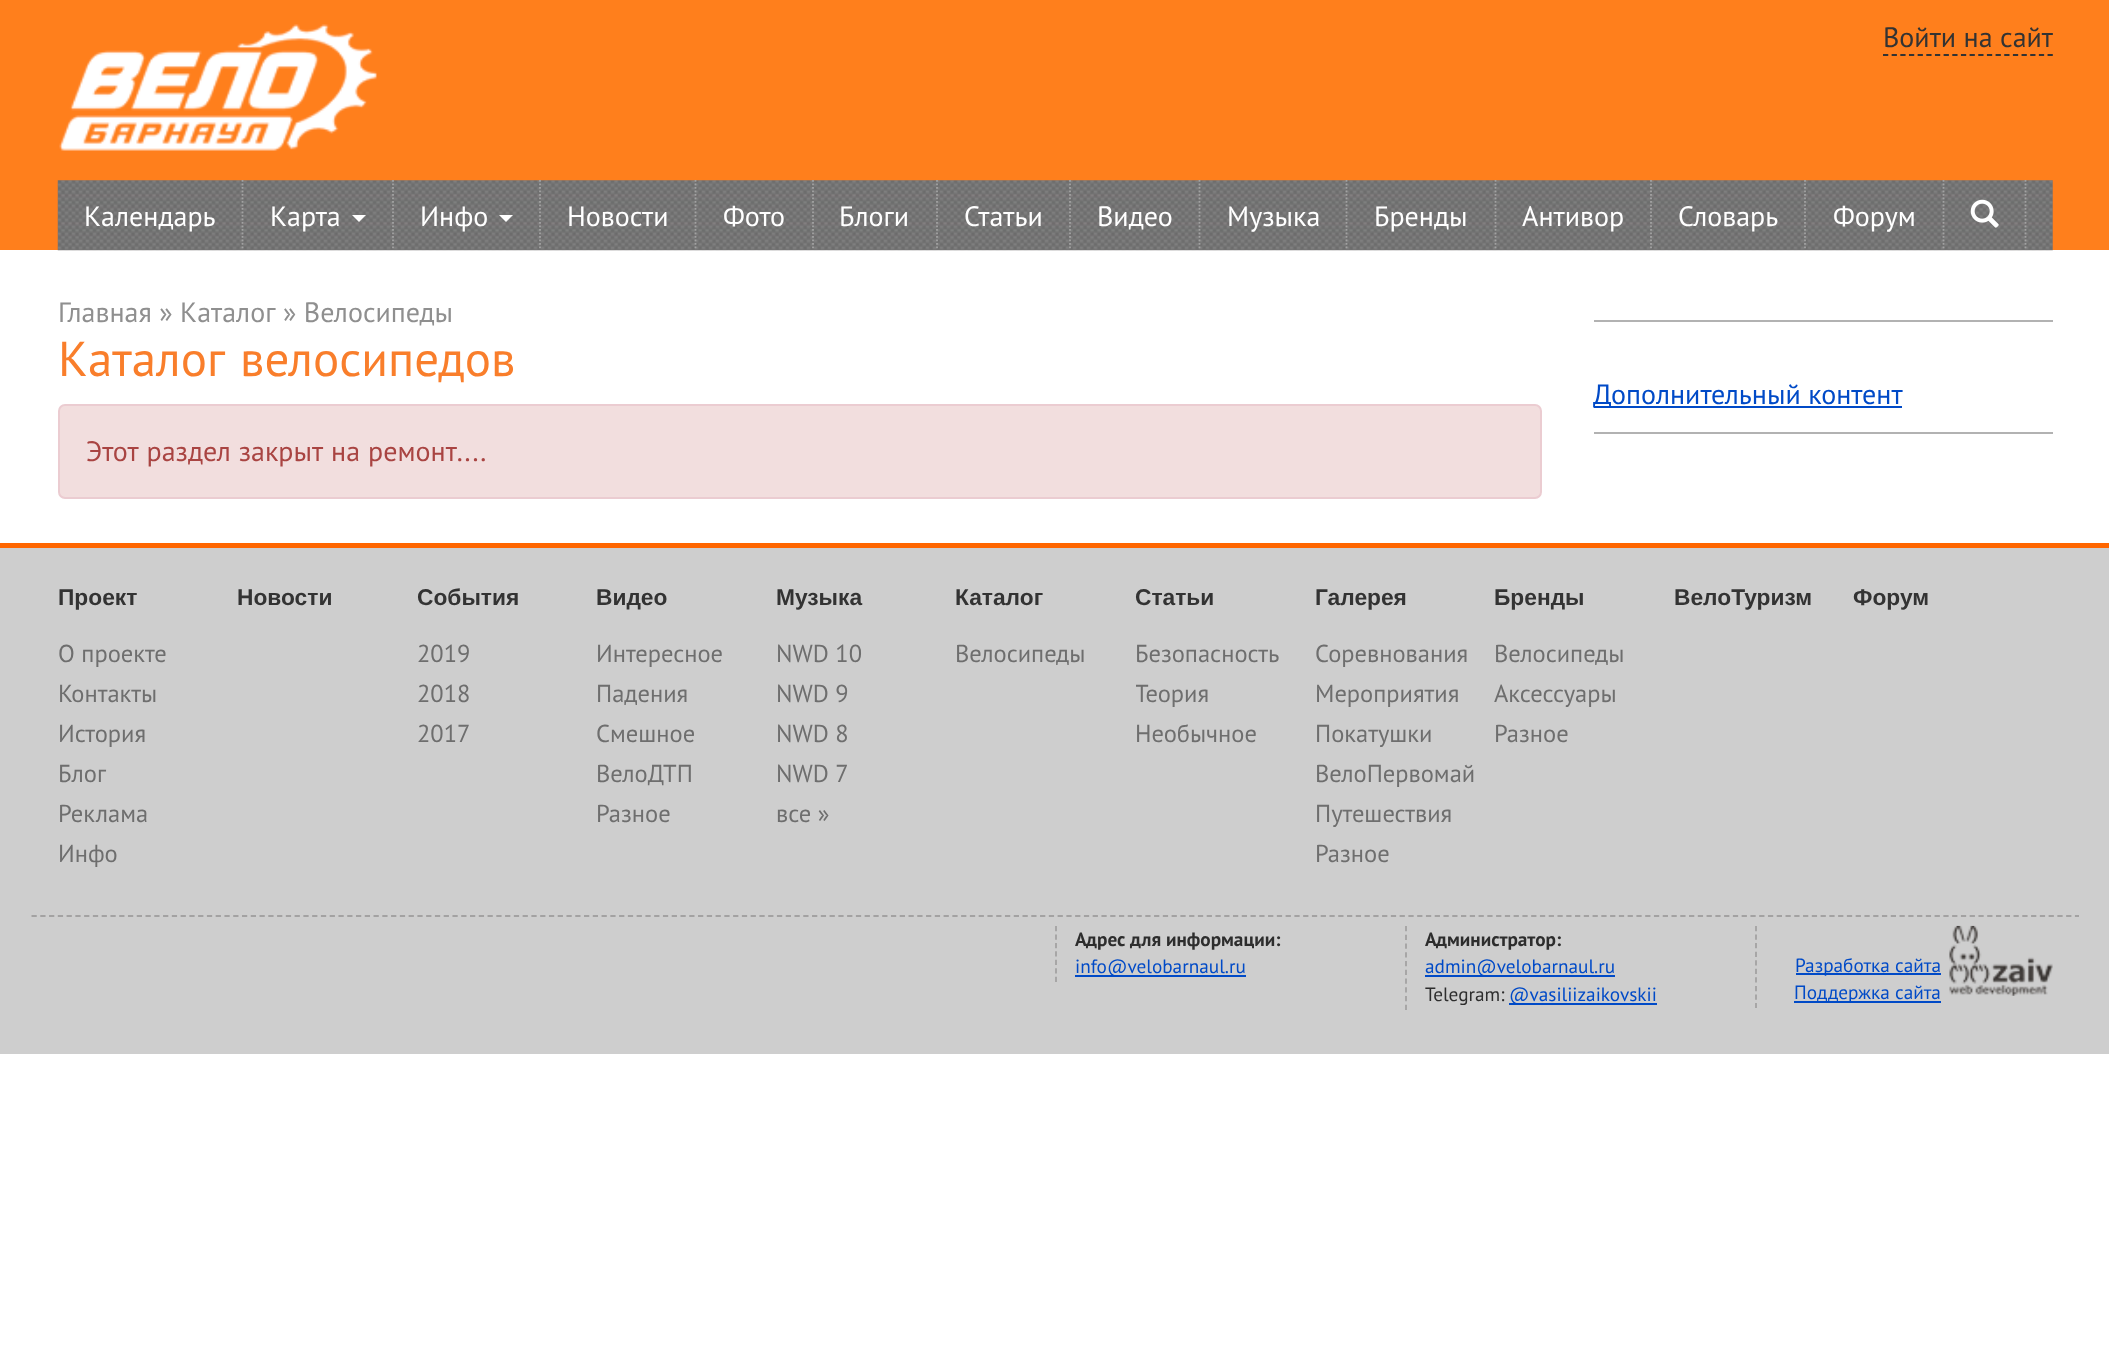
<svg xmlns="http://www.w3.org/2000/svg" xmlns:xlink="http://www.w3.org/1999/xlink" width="2109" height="1368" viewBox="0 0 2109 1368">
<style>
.cls-1{font:28px PT Sans;fill:#333333}
.cls-2{font:28px PT Sans;fill:#ffffff}
.cls-3{font:28px PT Sans;fill:#8f8f8f}
.cls-4{font:49px PT Sans;fill:#f97e2b}
.cls-5{font:28px PT Sans;fill:#a94442}
.cls-6{font:28px PT Sans;fill:#004ac7}
.cls-7{font:bold 22.75px Liberation Sans;fill:#333333}
.cls-8{font:24.5px PT Sans;fill:#6e6e6e}
.cls-9{font:bold 19.25px PT Sans;fill:#2d2d2d}
.cls-10{font:19.25px PT Sans;fill:#004ac7}
.cls-11{font:19.25px PT Sans;fill:#2d2d2d}
</style>
<defs>
<clipPath id="clip1"><rect x="1136" y="574" width="178" height="179"/></clipPath>
</defs>
<rect width="100%" height="100%" fill="#ffffff"/>
<rect fill="#ff7f1c" x="0" y="0" width="2109" height="250"/>
<image xlink:href="image0.png" x="59" y="24" width="318" height="127"/>
<path fill="none" stroke="#333333" stroke-width="1.8" stroke-dasharray="5.25 3.41" d="M1883 55H2053"/>
<image xlink:href="image1.png" x="57" y="180" width="1996" height="71"/>
<path fill="none" stroke="#a2a2a2" stroke-width="1.8" stroke-dasharray="1.75 1.75" d="M242.5 180V250"/>
<path fill="none" stroke="#a2a2a2" stroke-width="1.8" stroke-dasharray="1.75 1.75" d="M393 180V250"/>
<path fill="#ffffff" d="M352 215H366L359 222Z"/>
<path fill="none" stroke="#a2a2a2" stroke-width="1.8" stroke-dasharray="1.75 1.75" d="M540 180V250"/>
<path fill="#ffffff" d="M499 215H513L506 222Z"/>
<path fill="none" stroke="#a2a2a2" stroke-width="1.8" stroke-dasharray="1.75 1.75" d="M695.5 180V250"/>
<path fill="none" stroke="#a2a2a2" stroke-width="1.8" stroke-dasharray="1.75 1.75" d="M813 180V250"/>
<path fill="none" stroke="#a2a2a2" stroke-width="1.8" stroke-dasharray="1.75 1.75" d="M937 180V250"/>
<path fill="none" stroke="#a2a2a2" stroke-width="1.8" stroke-dasharray="1.75 1.75" d="M1070 180V250"/>
<path fill="none" stroke="#a2a2a2" stroke-width="1.8" stroke-dasharray="1.75 1.75" d="M1199.5 180V250"/>
<path fill="none" stroke="#a2a2a2" stroke-width="1.8" stroke-dasharray="1.75 1.75" d="M1346.5 180V250"/>
<path fill="none" stroke="#a2a2a2" stroke-width="1.8" stroke-dasharray="1.75 1.75" d="M1495.5 180V250"/>
<path fill="none" stroke="#a2a2a2" stroke-width="1.8" stroke-dasharray="1.75 1.75" d="M1651 180V250"/>
<path fill="none" stroke="#a2a2a2" stroke-width="1.8" stroke-dasharray="1.75 1.75" d="M1805 180V250"/>
<path fill="none" stroke="#a2a2a2" stroke-width="1.8" stroke-dasharray="1.75 1.75" d="M1943.5 180V250"/>
<path fill="none" stroke="#a2a2a2" stroke-width="1.8" stroke-dasharray="1.75 1.75" d="M2025.5 180V250"/>
<image xlink:href="image2.png" x="1970" y="199" width="29" height="29"/>
<rect fill="#f2dede" stroke="#ebccd1" stroke-width="2" x="59" y="405" width="1482" height="93" rx="6"/>
<rect fill="#b2b2b2" x="1594" y="320" width="459" height="2"/>
<rect fill="#b2b2b2" x="1594" y="432" width="459" height="2"/>
<rect fill="#004ac7" x="1594" y="406" width="308" height="2"/>
<rect fill="#cecece" x="0" y="548" width="2109" height="506"/>
<rect fill="#ff6600" x="0" y="543" width="2109" height="5"/>
<path fill="none" stroke="#a3a2a2" stroke-width="1.8" stroke-dasharray="5.25 3.52" d="M31.5 916H2079"/>
<path fill="none" stroke="#a3a2a2" stroke-width="1.8" stroke-dasharray="5.25 3.2" d="M1056 926V982"/>
<rect fill="#004ac7" x="1075" y="975" width="171" height="2"/>
<path fill="none" stroke="#a3a2a2" stroke-width="1.8" stroke-dasharray="5.25 3.5" d="M1406 926V1010"/>
<rect fill="#004ac7" x="1425" y="975" width="190" height="2"/>
<rect fill="#004ac7" x="1509" y="1003" width="148" height="2"/>
<path fill="none" stroke="#a3a2a2" stroke-width="1.8" stroke-dasharray="5.25 3.31" d="M1756 926V1008"/>
<rect fill="#004ac7" x="1796" y="973" width="145" height="2"/>
<rect fill="#004ac7" x="1794" y="1001" width="147" height="2"/>
<image xlink:href="image3.png" x="1949" y="925" width="104" height="71"/>
<text class="cls-1" x="1883" y="47">Войти на сайт</text>
<text class="cls-2" x="84" y="226">Календарь</text>
<text class="cls-2" x="270" y="226">Карта</text>
<text class="cls-2" x="420" y="226">Инфо</text>
<text class="cls-2" x="567" y="226">Новости</text>
<text class="cls-2" x="723" y="226">Фото</text>
<text class="cls-2" x="839" y="226">Блоги</text>
<text class="cls-2" x="964" y="226">Статьи</text>
<text class="cls-2" x="1097" y="226">Видео</text>
<text class="cls-2" x="1227" y="226">Музыка</text>
<text class="cls-2" x="1374" y="226">Бренды</text>
<text class="cls-2" x="1522" y="226">Антивор</text>
<text class="cls-2" x="1678" y="226">Словарь</text>
<text class="cls-2" x="1833" y="226">Форум</text>
<text class="cls-3" x="58" y="322">Главная » Каталог » Велосипеды</text>
<text class="cls-4" x="58" y="376" word-spacing="2">Каталог велосипедов</text>
<text class="cls-5" x="86" y="461" word-spacing="0.5">Этот раздел закрыт на ремонт....</text>
<text class="cls-6" x="1593" y="404">Дополнительный контент</text>
<text class="cls-7" x="58" y="605">Проект</text>
<text class="cls-8"><tspan x="58" y="662">О проекте</tspan><tspan x="58" y="702">Контакты</tspan><tspan x="58" y="742">История</tspan><tspan x="58" y="782">Блог</tspan><tspan x="58" y="822">Реклама</tspan><tspan x="58" y="862">Инфо</tspan></text>
<text class="cls-7" x="237" y="605">Новости</text>
<text class="cls-7" x="417" y="605">События</text>
<text class="cls-8"><tspan x="417" y="662">2019</tspan><tspan x="417" y="702">2018</tspan><tspan x="417" y="742">2017</tspan></text>
<text class="cls-7" x="596" y="605">Видео</text>
<text class="cls-8"><tspan x="596" y="662">Интересное</tspan><tspan x="596" y="702">Падения</tspan><tspan x="596" y="742">Смешное</tspan><tspan x="596" y="782">ВелоДТП</tspan><tspan x="596" y="822">Разное</tspan></text>
<text class="cls-7" x="776" y="605">Музыка</text>
<text class="cls-8"><tspan x="776" y="662">NWD 10</tspan><tspan x="776" y="702">NWD 9</tspan><tspan x="776" y="742">NWD 8</tspan><tspan x="776" y="782">NWD 7</tspan><tspan x="776" y="822">все »</tspan></text>
<text class="cls-7" x="955" y="605">Каталог</text>
<text class="cls-8" x="955" y="662">Велосипеды</text>
<text class="cls-7" x="1135" y="605">Статьи</text>
<text class="cls-8" x="1135" y="662">Безопасность</text>
<g clip-path="url(#clip1)">
<text class="cls-8" x="1135" y="702">Теория</text>
</g>
<text class="cls-8" x="1135" y="742">Необычное</text>
<text class="cls-7" x="1315" y="605">Галерея</text>
<text class="cls-8"><tspan x="1315" y="662">Соревнования</tspan><tspan x="1315" y="702">Мероприятия</tspan><tspan x="1315" y="742">Покатушки</tspan><tspan x="1315" y="782">ВелоПервомай</tspan><tspan x="1315" y="822">Путешествия</tspan><tspan x="1315" y="862">Разное</tspan></text>
<text class="cls-7" x="1494" y="605">Бренды</text>
<text class="cls-8"><tspan x="1494" y="662">Велосипеды</tspan><tspan x="1494" y="702">Аксессуары</tspan><tspan x="1494" y="742">Разное</tspan></text>
<text class="cls-7" x="1674" y="605">ВелоТуризм</text>
<text class="cls-7" x="1853" y="605">Форум</text>
<text class="cls-9" x="1075" y="946">Адрес для информации:</text>
<text class="cls-10" x="1075" y="973">info@velobarnaul.ru</text>
<text class="cls-9" x="1425" y="946">Администратор:</text>
<text class="cls-10" x="1425" y="973">admin@velobarnaul.ru</text>
<text class="cls-11" x="1425" y="1001">Telegram:</text>
<text class="cls-10" x="1509" y="1001">@vasiliizaikovskii</text>
<text class="cls-10" x="1795" y="972">Разработка сайта</text>
<text class="cls-10" x="1794" y="999">Поддержка сайта</text>
</svg>
